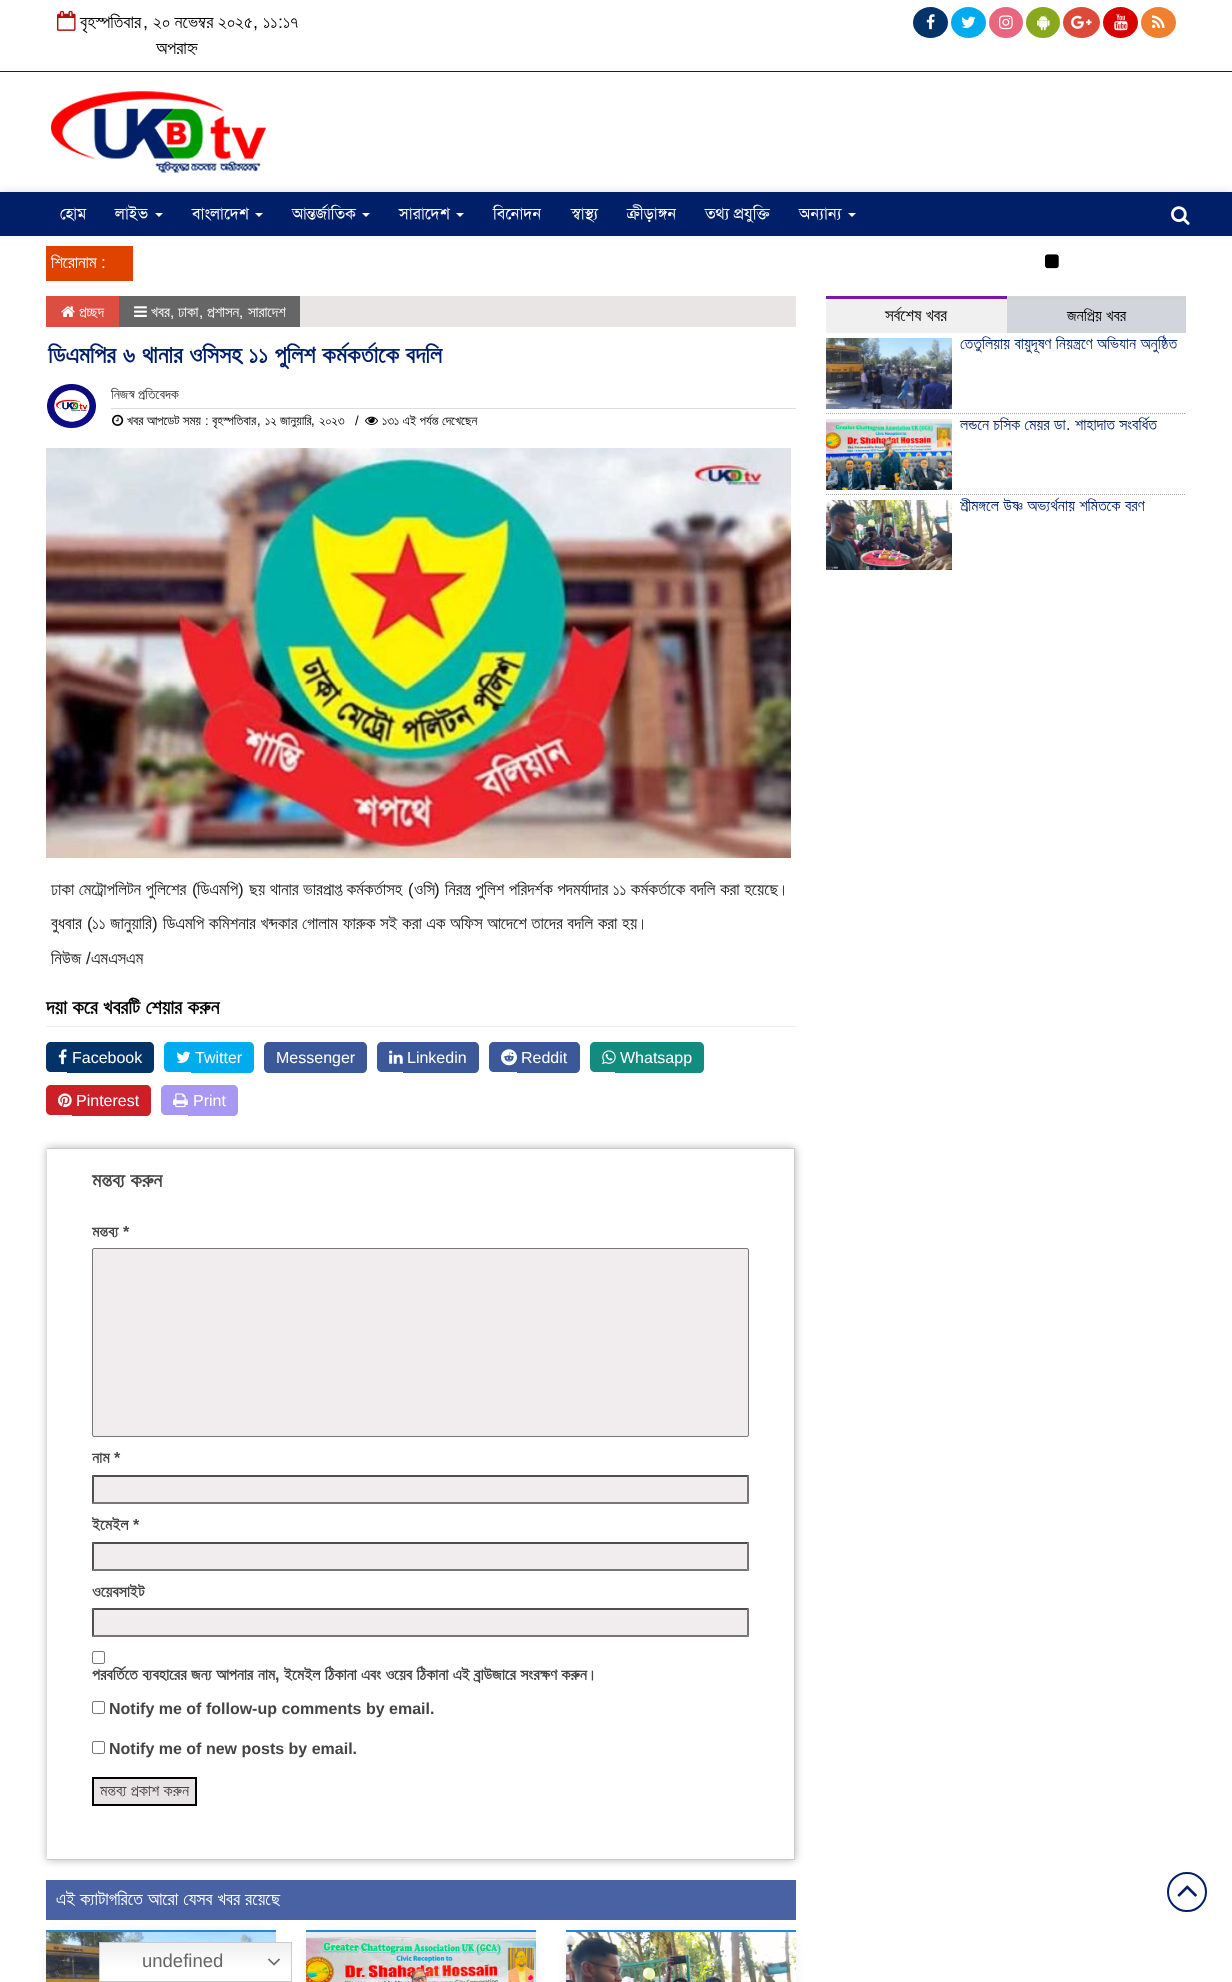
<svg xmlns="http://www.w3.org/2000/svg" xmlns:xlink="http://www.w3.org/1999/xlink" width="1232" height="1982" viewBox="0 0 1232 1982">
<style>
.cls-1{font:18px FreeSans;fill:#000000}
.cls-2{font:18px Liberation Sans;fill:#000000}
.cls-3{font:18.5px Liberation Sans;fill:#666666}
.cls-4{font:16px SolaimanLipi;fill:#ffffff}
.cls-5{font:17px FreeSans;fill:#ffffff}
.cls-6{font:17px Liberation Sans;fill:#ffffff}
.cls-7{font:15px FreeSans;fill:#ffffff}
.cls-8{font:15px Liberation Sans;fill:#ffffff}
.cls-9{font:bold 24px FreeSans;fill:#001f69}
.cls-10{font:14px FreeSans;fill:#333333}
.cls-11{font:13px FreeSans;fill:#000000}
.cls-12{font:13px Liberation Sans;fill:#000000}
.cls-13{font:17px FreeSans;fill:#202020}
.cls-14{font:17px Liberation Sans;fill:#202020}
.cls-15{font:bold 20px FreeSans;fill:#000000}
.cls-16{font:16px Liberation Sans;fill:#ffffff}
.cls-17{font:bold 20px FreeSans;fill:#444444}
.cls-18{font:bold 16px FreeSans;fill:#444444}
.cls-19{font:bold 16px Liberation Sans;fill:#444444}
.cls-20{font:16px FreeSans;fill:#444444}
.cls-21{font:18px FreeSans;fill:#ffffff}
.cls-22{font:17px FreeSans;fill:#000000}
.cls-23{font:16px FreeSans;fill:#000000}
.cls-24{font:16px FreeSans;fill:#001f69}
.cls-25{font:16px Liberation Sans;fill:#001f69}
</style>
<defs>
<linearGradient id="g1" gradientUnits="userSpaceOnUse" x1="196" y1="1942" x2="196" y2="1982"><stop offset="0" stop-color="#efefef"/><stop offset="0.7" stop-color="#ffffff"/></linearGradient>
<clipPath id="clip1"><path d="M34 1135H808V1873H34ZM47 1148H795V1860H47Z" clip-rule="evenodd"/></clipPath>
</defs>
<rect width="100%" height="100%" fill="#ffffff"/>
<rect fill="#48014b" x="0" y="71" width="1232" height="1"/>
<image xlink:href="image0.png" x="57" y="10" width="19" height="21"/>
<ellipse fill="#023369" cx="930.5" cy="22.5" rx="17.5" ry="15.5"/>
<image xlink:href="image1.png" x="926" y="14" width="9" height="16"/>
<ellipse fill="#00acee" cx="968.5" cy="22.5" rx="17.5" ry="15.5"/>
<image xlink:href="image2.png" x="961" y="16" width="15" height="12"/>
<ellipse fill="#e9667f" cx="1006" cy="22.5" rx="17" ry="15.5"/>
<image xlink:href="image3.png" x="999" y="15" width="14" height="15"/>
<ellipse fill="#89a81e" cx="1043" cy="22.5" rx="17" ry="15.5"/>
<image xlink:href="image4.png" x="1037" y="15" width="13" height="16"/>
<ellipse fill="#dd4a3a" cx="1081.5" cy="22.5" rx="18.5" ry="15.5"/>
<image xlink:href="image5.png" x="1071" y="15" width="21" height="14"/>
<ellipse fill="#d80202" cx="1120.5" cy="22.5" rx="17.5" ry="15.5"/>
<image xlink:href="image6.png" x="1114" y="14" width="14" height="17"/>
<ellipse fill="#ee802f" cx="1158.5" cy="22.5" rx="17.5" ry="15.5"/>
<image xlink:href="image7.png" x="1152" y="15" width="13" height="13"/>
<rect fill="#4962a4" x="46" y="1880" width="750" height="40"/>
<rect fill="#efefef" filter="blur(5px)" x="46" y="1930" width="230" height="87" rx="20"/>
<image xlink:href="image23.png" x="46" y="1932" width="230" height="50"/>
<rect fill="#efefef" filter="blur(5px)" x="306" y="1930" width="230" height="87" rx="20"/>
<rect fill="url(#g1)" x="100" y="1943" width="191" height="38"/>
<rect fill="none" stroke="#cccccc" x="99.5" y="1942.5" width="192" height="39"/>
<image xlink:href="image8.png" x="268" y="1958" width="12" height="8"/>
<image xlink:href="image9.png" x="51" y="91" width="215" height="82"/>
<rect fill="#dddbdb" filter="blur(5px)" x="0" y="192" width="1232" height="44"/>
<rect fill="#001f69" x="0" y="192" width="1232" height="44"/>
<path fill="#ffffff" d="M155 213H163L159 217Z"/>
<path fill="#ffffff" d="M255 213H263L259 217Z"/>
<path fill="#ffffff" d="M362 213H370L366 217Z"/>
<path fill="#ffffff" d="M456 213H464L460 217Z"/>
<path fill="#ffffff" d="M848 213H856L852 217Z"/>
<image xlink:href="image10.png" x="1171" y="206" width="19" height="19"/>
<rect fill="#ffffff" x="0" y="236" width="1232" height="7"/>
<rect fill="#e04300" x="46" y="246" width="87" height="35"/>
<image xlink:href="image11.png" x="1045" y="254" width="14" height="15"/>
<rect fill="#eae5e5" x="300" y="296" width="496" height="31"/>
<rect fill="#dc4e41" x="46" y="296" width="73" height="31"/>
<image xlink:href="image12.png" x="61" y="306" width="14" height="11"/>
<rect fill="#666666" x="119" y="296" width="181" height="31"/>
<image xlink:href="image13.png" x="134" y="306" width="13" height="11"/>
<image xlink:href="image14.png" x="47" y="384" width="49" height="44"/>
<rect fill="#dddddd" x="111" y="408" width="685" height="1"/>
<image xlink:href="image15.png" x="112" y="414" width="12" height="12"/>
<image xlink:href="image16.png" x="365" y="416" width="13" height="9"/>
<image xlink:href="image17.png" x="46" y="448" width="745" height="410"/>
<rect fill="#ededed" x="46" y="1026" width="750" height="1"/>
<path fill="#023369" d="M51 1042H67V1072H51C48 1072 46 1070 46 1067V1047C46 1044 48 1042 51 1042Z"/>
<path fill="#023369" d="M67 1042H149C152 1042 154 1044 154 1047V1068C154 1071 152 1073 149 1073H67Z"/>
<image xlink:href="image1.png" x="58" y="1049" width="9" height="16"/>
<path fill="#00acee" d="M169 1042H191V1072H169C166 1072 164 1070 164 1067V1047C164 1044 166 1042 169 1042Z"/>
<path fill="#00acee" d="M191 1042H249C252 1042 254 1044 254 1047V1068C254 1071 252 1073 249 1073H191Z"/>
<image xlink:href="image2.png" x="176" y="1051" width="15" height="12"/>
<path fill="#3b5999" d="M269 1042H276V1073H269C266 1073 264 1071 264 1068V1047C264 1044 266 1042 269 1042Z"/>
<path fill="#3b5999" d="M276 1042H362C365 1042 367 1044 367 1047V1068C367 1071 365 1073 362 1073H276Z"/>
<path fill="#3b5999" d="M382 1042H403V1072H382C379 1072 377 1070 377 1067V1047C377 1044 379 1042 382 1042Z"/>
<path fill="#3b5999" d="M403 1042H474C477 1042 479 1044 479 1047V1068C479 1071 477 1073 474 1073H403Z"/>
<image xlink:href="image18.png" x="389" y="1050" width="14" height="14"/>
<path fill="#3b5999" d="M494 1042H517V1072H494C491 1072 489 1070 489 1067V1047C489 1044 491 1042 494 1042Z"/>
<path fill="#3b5999" d="M517 1042H575C578 1042 580 1044 580 1047V1068C580 1071 578 1073 575 1073H517Z"/>
<image xlink:href="image19.png" x="501" y="1049" width="16" height="17"/>
<path fill="#128c7e" d="M595 1042H615V1072H595C592 1072 590 1070 590 1067V1047C590 1044 592 1042 595 1042Z"/>
<path fill="#128c7e" d="M615 1042H699C702 1042 704 1044 704 1047V1068C704 1071 702 1073 699 1073H615Z"/>
<image xlink:href="image20.png" x="602" y="1050" width="14" height="15"/>
<path fill="#cb2028" d="M51 1085H72V1115H51C48 1115 46 1113 46 1110V1090C46 1087 48 1085 51 1085Z"/>
<path fill="#cb2028" d="M72 1085H146C149 1085 151 1087 151 1090V1111C151 1114 149 1116 146 1116H72Z"/>
<image xlink:href="image21.png" x="58" y="1093" width="14" height="15"/>
<path fill="#a897f3" d="M166 1085H188V1115H166C163 1115 161 1113 161 1110V1090C161 1087 163 1085 166 1085Z"/>
<path fill="#a897f3" d="M188 1085H233C236 1085 238 1087 238 1090V1111C238 1114 236 1116 233 1116H188Z"/>
<image xlink:href="image22.png" x="173" y="1093" width="15" height="15"/>
<g clip-path="url(#clip1)">
<rect fill="#000000" fill-opacity="0.3" filter="blur(4px)" x="47" y="1148" width="748" height="712"/>
</g>
<rect fill="#cccccc" x="47" y="1148" width="748" height="1"/>
<rect fill="#cccccc" x="794" y="1148" width="1" height="712"/>
<rect fill="#cccccc" x="47" y="1859" width="748" height="1"/>
<rect fill="#f1edee" stroke="#767676" x="92.5" y="1248.5" width="656" height="188" rx="1.5"/>
<rect fill="#f1edee" x="92" y="1475" width="657" height="29"/>
<path fill="#4f4f4f" d="M92 1475H749L747 1477H94Z"/>
<path fill="#767676" d="M749 1475V1504L747 1502V1477Z"/>
<path fill="#767676" d="M749 1504H92L94 1502H747Z"/>
<path fill="#4f4f4f" d="M92 1504V1475L94 1477V1502Z"/>
<rect fill="#f1edee" x="92" y="1542" width="657" height="29"/>
<path fill="#4f4f4f" d="M92 1542H749L747 1544H94Z"/>
<path fill="#767676" d="M749 1542V1571L747 1569V1544Z"/>
<path fill="#767676" d="M749 1571H92L94 1569H747Z"/>
<path fill="#4f4f4f" d="M92 1571V1542L94 1544V1569Z"/>
<rect fill="#f1edee" x="92" y="1608" width="657" height="29"/>
<path fill="#4f4f4f" d="M92 1608H749L747 1610H94Z"/>
<path fill="#767676" d="M749 1608V1637L747 1635V1610Z"/>
<path fill="#767676" d="M749 1637H92L94 1635H747Z"/>
<path fill="#4f4f4f" d="M92 1637V1608L94 1610V1635Z"/>
<rect fill="none" stroke="#767676" x="92.5" y="1651.5" width="12" height="12" rx="1.5"/>
<rect fill="none" stroke="#767676" x="92.5" y="1701.5" width="12" height="12" rx="1.5"/>
<rect fill="none" stroke="#767676" x="92.5" y="1741.5" width="12" height="12" rx="1.5"/>
<rect fill="#e8e4e5" stroke="#000000" stroke-width="2" x="93" y="1778" width="103" height="27"/>
<rect fill="#2487db" x="46" y="1930" width="230" height="2"/>
<rect fill="#2487db" x="306" y="1930" width="230" height="2"/>
<image xlink:href="image24.png" x="306" y="1932" width="230" height="50"/>
<rect fill="#efefef" filter="blur(5px)" x="566" y="1930" width="230" height="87" rx="20"/>
<rect fill="#2487db" x="566" y="1930" width="230" height="2"/>
<image xlink:href="image25.png" x="566" y="1932" width="230" height="50"/>
<rect fill="#d2d5db" x="1007" y="296" width="179" height="37"/>
<rect fill="#f0f0f0" x="826" y="299" width="181" height="34"/>
<rect fill="#7719aa" x="826" y="296" width="181" height="3"/>
<rect fill="#d2d2d2" x="1007" y="297" width="179" height="3"/>
<path fill="none" stroke="#a6a6a6" stroke-dasharray="1 1" d="M826 413.5H1186"/>
<image xlink:href="image26.png" x="826" y="338" width="126" height="71"/>
<path fill="none" stroke="#a6a6a6" stroke-dasharray="1 1" d="M826 494.5H1186"/>
<image xlink:href="image27.png" x="826" y="419" width="126" height="71"/>
<image xlink:href="image28.png" x="826" y="500" width="126" height="70"/>
<circle fill="none" stroke="#001f69" stroke-width="2" cx="1187" cy="1892" r="19"/>
<image xlink:href="image29.png" x="1177" y="1885" width="20" height="12"/>
<text class="cls-1" x="80" y="28">বৃহস্পতিবার</text>
<text class="cls-1" x="153" y="28">২০ নভেম্বর ২০২৫</text>
<text class="cls-1" x="263" y="28">১১</text>
<text class="cls-2" x="278" y="28">:</text>
<text class="cls-1" x="283" y="28">১৭</text>
<text class="cls-2" x="143" y="28">,</text>
<text class="cls-2" x="253" y="28">,</text>
<text class="cls-1" x="156" y="54">অপরাহ্ন</text>
<text class="cls-3" x="142" y="1967">undefined</text>
<text class="cls-4" x="60" y="219">হোম</text>
<text class="cls-4" x="115" y="219">লাইভ</text>
<text class="cls-4" x="192" y="219">বাংলাদেশ</text>
<text class="cls-4" x="292" y="219">আন্তর্জাতিক</text>
<text class="cls-4" x="399" y="219">সারাদেশ</text>
<text class="cls-4" x="493" y="219">বিনোদন</text>
<text class="cls-4" x="571" y="219">স্বাস্থ্য</text>
<text class="cls-4" x="627" y="219">ক্রীড়াঙ্গন</text>
<text class="cls-4" x="705" y="219">তথ্য প্রযুক্তি</text>
<text class="cls-4" x="799" y="219">অন্যান্য</text>
<text class="cls-5" x="51" y="268">শিরোনাম</text>
<text class="cls-6" x="101" y="268">:</text>
<text class="cls-7" x="79" y="317">প্রচ্ছদ</text>
<text class="cls-7" x="151" y="317">খবর</text>
<text class="cls-8" x="170" y="317">,</text>
<text class="cls-7" x="178" y="317">ঢাকা</text>
<text class="cls-7" x="248" y="317">সারাদেশ</text>
<text class="cls-8" x="199" y="317">,</text>
<text class="cls-7" x="207" y="317">প্রশাসন</text>
<text class="cls-8" x="239" y="317">,</text>
<text class="cls-9" x="48" y="363" word-spacing="0.75">ডিএমপির ৬ থানার ওসিসহ ১১ পুলিশ কর্মকর্তাকে বদলি</text>
<text class="cls-10" x="111" y="399">নিজস্ব প্রতিবেদক</text>
<text class="cls-11" x="127" y="425">খবর আপডেট সময়</text>
<text class="cls-12" x="205" y="425">:</text>
<text class="cls-11" x="212" y="425">বৃহস্পতিবার</text>
<text class="cls-12" x="257" y="425">,</text>
<text class="cls-11" x="265" y="425">১২ জানুয়ারি</text>
<text class="cls-12" x="311" y="425">,</text>
<text class="cls-11" x="319" y="425">২০২৩</text>
<text class="cls-12" x="355" y="425">/</text>
<text class="cls-11" x="382" y="425">১৩১ এই পর্যন্ত দেখেছেন</text>
<text class="cls-13" x="51" y="895" word-spacing="0.25">ঢাকা মেট্রোপলিটন পুলিশের</text>
<text class="cls-14" x="192" y="895">(</text>
<text class="cls-13" x="197" y="895">ডিএমপি</text>
<text class="cls-14" x="238" y="895">)</text>
<text class="cls-13" x="249" y="895" word-spacing="0.25">ছয় থানার ভারপ্রাপ্ত কর্মকর্তাসহ</text>
<text class="cls-14" x="408" y="895">(</text>
<text class="cls-13" x="414" y="895">ওসি</text>
<text class="cls-14" x="434" y="895">)</text>
<text class="cls-13" x="445" y="895" word-spacing="0.25">নিরস্ত্র পুলিশ পরিদর্শক পদমর্যাদার ১১ কর্মকর্তাকে বদলি করা হয়েছে।</text>
<text class="cls-13" x="51" y="929">বুধবার</text>
<text class="cls-14" x="87" y="929">(</text>
<text class="cls-13" x="92" y="929" word-spacing="0.4">১১ জানুয়ারি</text>
<text class="cls-14" x="152" y="929">)</text>
<text class="cls-13" x="163" y="929" word-spacing="0.4">ডিএমপি কমিশনার খন্দকার গোলাম ফারুক সই করা এক অফিস আদেশে তাদের বদলি করা হয়।</text>
<text class="cls-13" x="51" y="964">নিউজ</text>
<text class="cls-14" x="86" y="964">/</text>
<text class="cls-13" x="91" y="964">এমএসএম</text>
<text class="cls-15" x="46" y="1014" word-spacing="0.5">দয়া করে খবরটি শেয়ার করুন</text>
<text class="cls-16" x="72" y="1063">Facebook</text>
<text class="cls-16" x="195" y="1063">Twitter</text>
<text class="cls-16" x="276" y="1063">Messenger</text>
<text class="cls-16" x="407" y="1063">Linkedin</text>
<text class="cls-16" x="521" y="1063">Reddit</text>
<text class="cls-16" x="620" y="1063">Whatsapp</text>
<text class="cls-16" x="76" y="1106">Pinterest</text>
<text class="cls-16" x="193" y="1106">Print</text>
<text class="cls-17" x="92" y="1187" word-spacing="0.5">মন্তব্য করুন</text>
<text class="cls-18" x="92" y="1237">মন্তব্য</text>
<text class="cls-19" x="123" y="1237">*</text>
<text class="cls-18" x="92" y="1463">নাম</text>
<text class="cls-19" x="114" y="1463">*</text>
<text class="cls-18" x="92" y="1530">ইমেইল</text>
<text class="cls-19" x="133" y="1530">*</text>
<text class="cls-18" x="92" y="1597">ওয়েবসাইট</text>
<text class="cls-18" x="92" y="1680" word-spacing="0.4">পরবর্তিতে ব্যবহারের জন্য আপনার নাম</text>
<text class="cls-19" x="275" y="1680">,</text>
<text class="cls-18" x="284" y="1680" word-spacing="0.4">ইমেইল ঠিকানা এবং ওয়েব ঠিকানা এই ব্রাউজারে সংরক্ষণ করুন।</text>
<text class="cls-19" x="109" y="1714">Notify me of follow-up comments by email.</text>
<text class="cls-19" x="109" y="1754">Notify me of new posts by email.</text>
<text class="cls-20" x="100" y="1796" word-spacing="0.5">মন্তব্য প্রকাশ করুন</text>
<text class="cls-21" x="56" y="1905" word-spacing="0.5">এই ক্যাটাগরিতে আরো যেসব খবর রয়েছে</text>
<text class="cls-22" x="885" y="321">সর্বশেষ খবর</text>
<text class="cls-23" x="1067" y="321" word-spacing="0.5">জনপ্রিয় খবর</text>
<text class="cls-24" x="960" y="349" word-spacing="0.5">তেতুলিয়ায় বায়ুদূষণ নিয়ন্ত্রণে অভিযান অনুষ্ঠিত</text>
<text class="cls-24" x="960" y="430" word-spacing="0.25">লন্ডনে চসিক মেয়র ডা</text>
<text class="cls-25" x="1066" y="430">.</text>
<text class="cls-24" x="1075" y="430" word-spacing="0.25">শাহাদাত সংবর্ধিত</text>
<text class="cls-24" x="960" y="511" word-spacing="0.5">শ্রীমঙ্গলে উষ্ণ অভ্যর্থনায় শমিতকে বরণ</text>
</svg>
